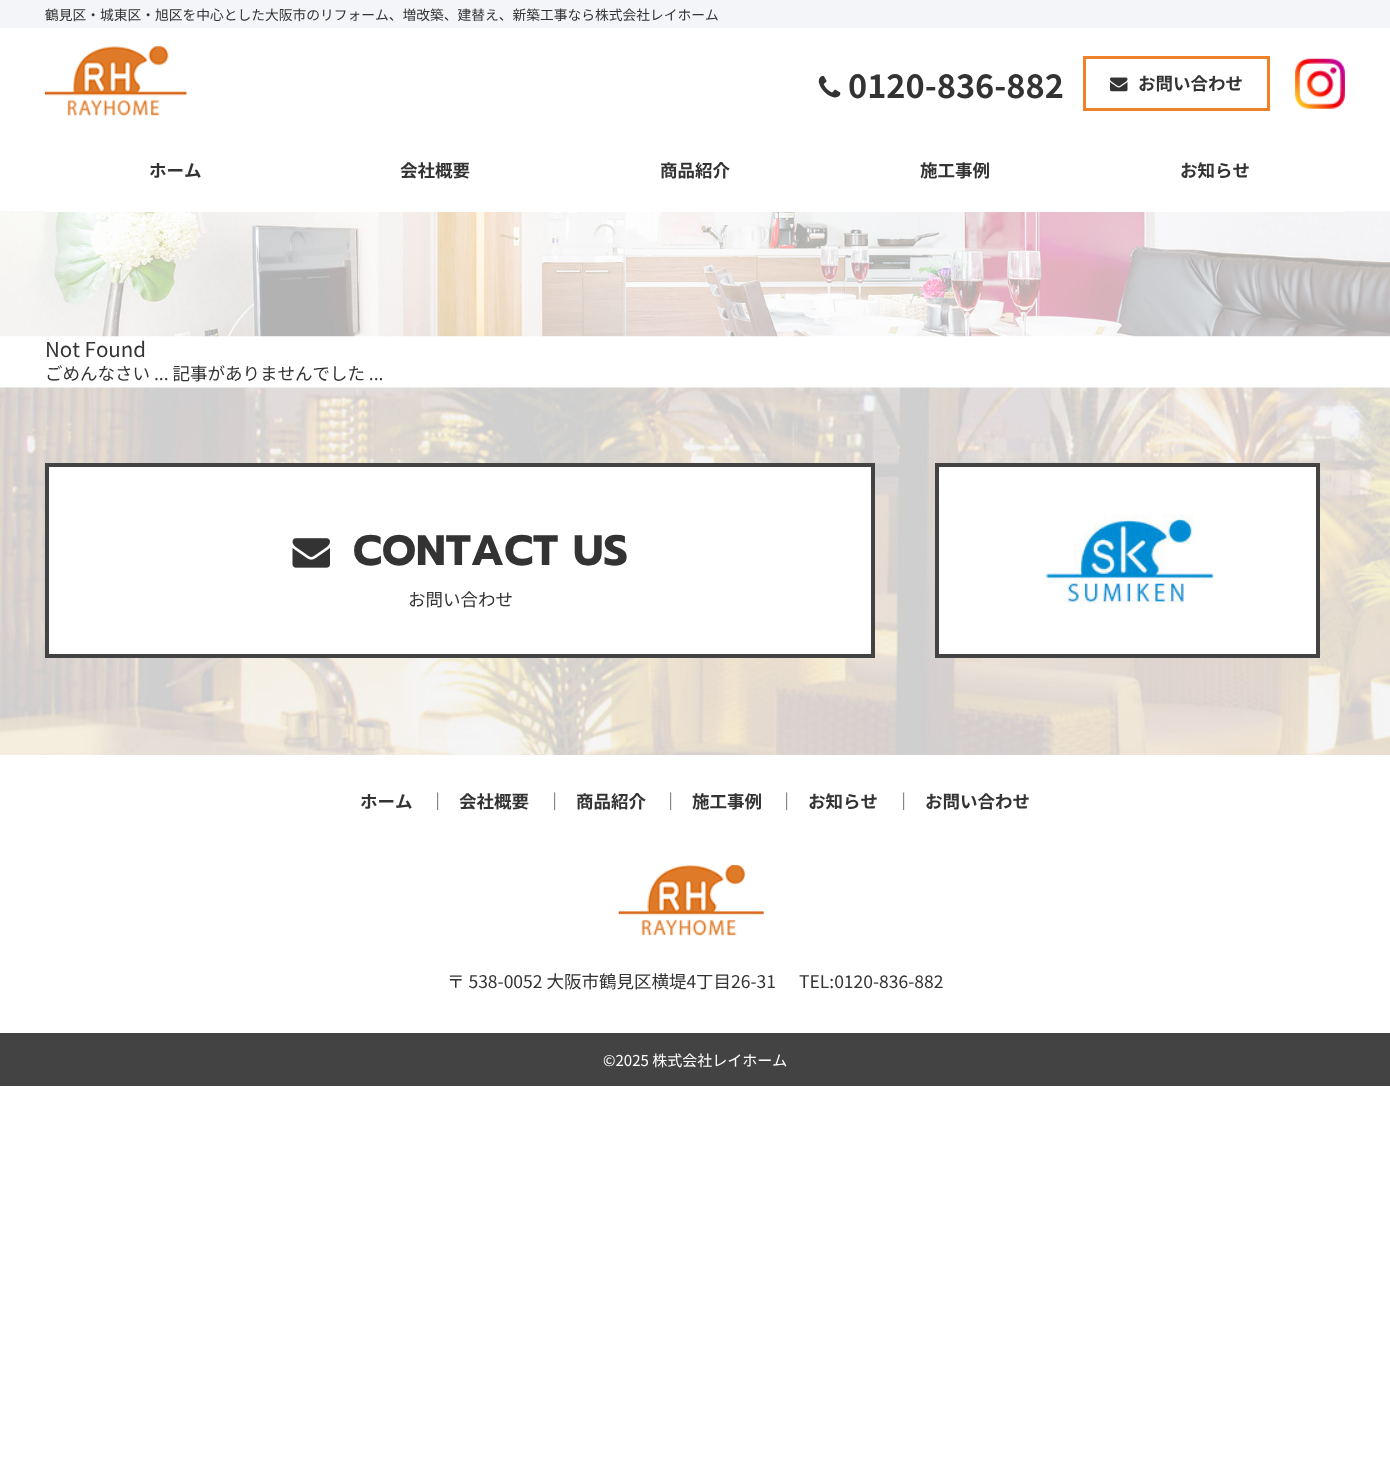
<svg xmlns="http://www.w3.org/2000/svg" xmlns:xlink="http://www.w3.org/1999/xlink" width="1390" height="1459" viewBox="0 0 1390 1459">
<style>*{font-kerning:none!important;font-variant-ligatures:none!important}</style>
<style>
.cls-1{font:13.75px Noto Sans JP;fill:#333333}
.cls-2{font:bold 32.5px Noto Sans JP;fill:#333333}
.cls-3{font:bold 17.5px Noto Sans JP;fill:#333333}
.cls-4{font:20.5px Noto Sans JP;fill:#333333}
.cls-5{font:17.5px Noto Sans JP;fill:#333333}
.cls-6{font:bold 42.5px Prompt;fill:#333333}
.cls-7{font:15px Noto Sans JP;fill:#ffffff}
</style>
<rect width="100%" height="100%" fill="#ffffff"/>
<rect fill="#f4f5f8" x="0" y="0" width="1390" height="28"/>
<image xlink:href="image0.png" x="45" y="46" width="142" height="70"/>
<image xlink:href="image1.png" x="818" y="75" width="23" height="23"/>
<rect fill="none" stroke="#ef8229" stroke-width="3" x="1084.5" y="57.5" width="184" height="52"/>
<image xlink:href="image2.png" x="1110" y="77" width="18" height="15"/>
<image xlink:href="image3.png" x="1295" y="58" width="50" height="51"/>
<image xlink:href="image4.png" x="0" y="211" width="1390" height="126"/>
<rect fill="#ffffff" x="45" y="211" width="1300" height="1"/>
<image xlink:href="image5.png" x="0" y="387" width="1390" height="368"/>
<rect fill="#ffffff" stroke="#434343" stroke-width="4" x="47" y="465" width="826" height="191"/>
<image xlink:href="image6.png" x="292" y="538" width="38" height="30"/>
<rect fill="#ffffff" stroke="#434343" stroke-width="4" x="937" y="465" width="381" height="191"/>
<image xlink:href="image7.png" x="1043" y="514" width="171" height="90"/>
<image xlink:href="image8.png" x="618" y="865" width="146" height="71"/>
<rect fill="#434343" x="0" y="1033" width="1390" height="53"/>
<text class="cls-1" x="45" y="20">鶴見区・城東区・旭区を中心とした大阪市のリフォーム、増改築、建替え、新築工事なら株式会社レイホーム</text>
<text class="cls-2" x="848" y="98">0120-836-882</text>
<text class="cls-3" x="1138" y="90">お問い合わせ</text>
<text class="cls-3" x="149" y="177">ホーム</text>
<text class="cls-3" x="400" y="177">会社概要</text>
<text class="cls-3" x="660" y="177">商品紹介</text>
<text class="cls-3" x="920" y="177">施工事例</text>
<text class="cls-3" x="1180" y="177">お知らせ</text>
<text class="cls-4" x="45" y="357">Not Found</text>
<text class="cls-5" x="45" y="380">ごめんなさい ... 記事がありませんでした ...</text>
<text class="cls-6" x="353" y="565">CONTACT</text>
<text class="cls-6" x="573" y="565">US</text>
<text class="cls-5" x="408" y="606">お問い合わせ</text>
<text class="cls-3" x="360" y="808">ホーム</text>
<text class="cls-5" x="429" y="808">│</text>
<text class="cls-3" x="459" y="808">会社概要</text>
<text class="cls-5" x="546" y="808">│</text>
<text class="cls-3" x="576" y="808">商品紹介</text>
<text class="cls-5" x="662" y="808">│</text>
<text class="cls-3" x="692" y="808">施工事例</text>
<text class="cls-5" x="778" y="808">│</text>
<text class="cls-3" x="808" y="808">お知らせ</text>
<text class="cls-5" x="895" y="808">│</text>
<text class="cls-3" x="925" y="808">お問い合わせ</text>
<text class="cls-5" x="447" y="988">〒 538-0052 大阪市鶴見区横堤4丁目26-31</text>
<text class="cls-5" x="799" y="988">TEL:0120-836-882</text>
<text class="cls-7" x="603" y="1066">©2025 株式会社レイホーム</text>
</svg>
